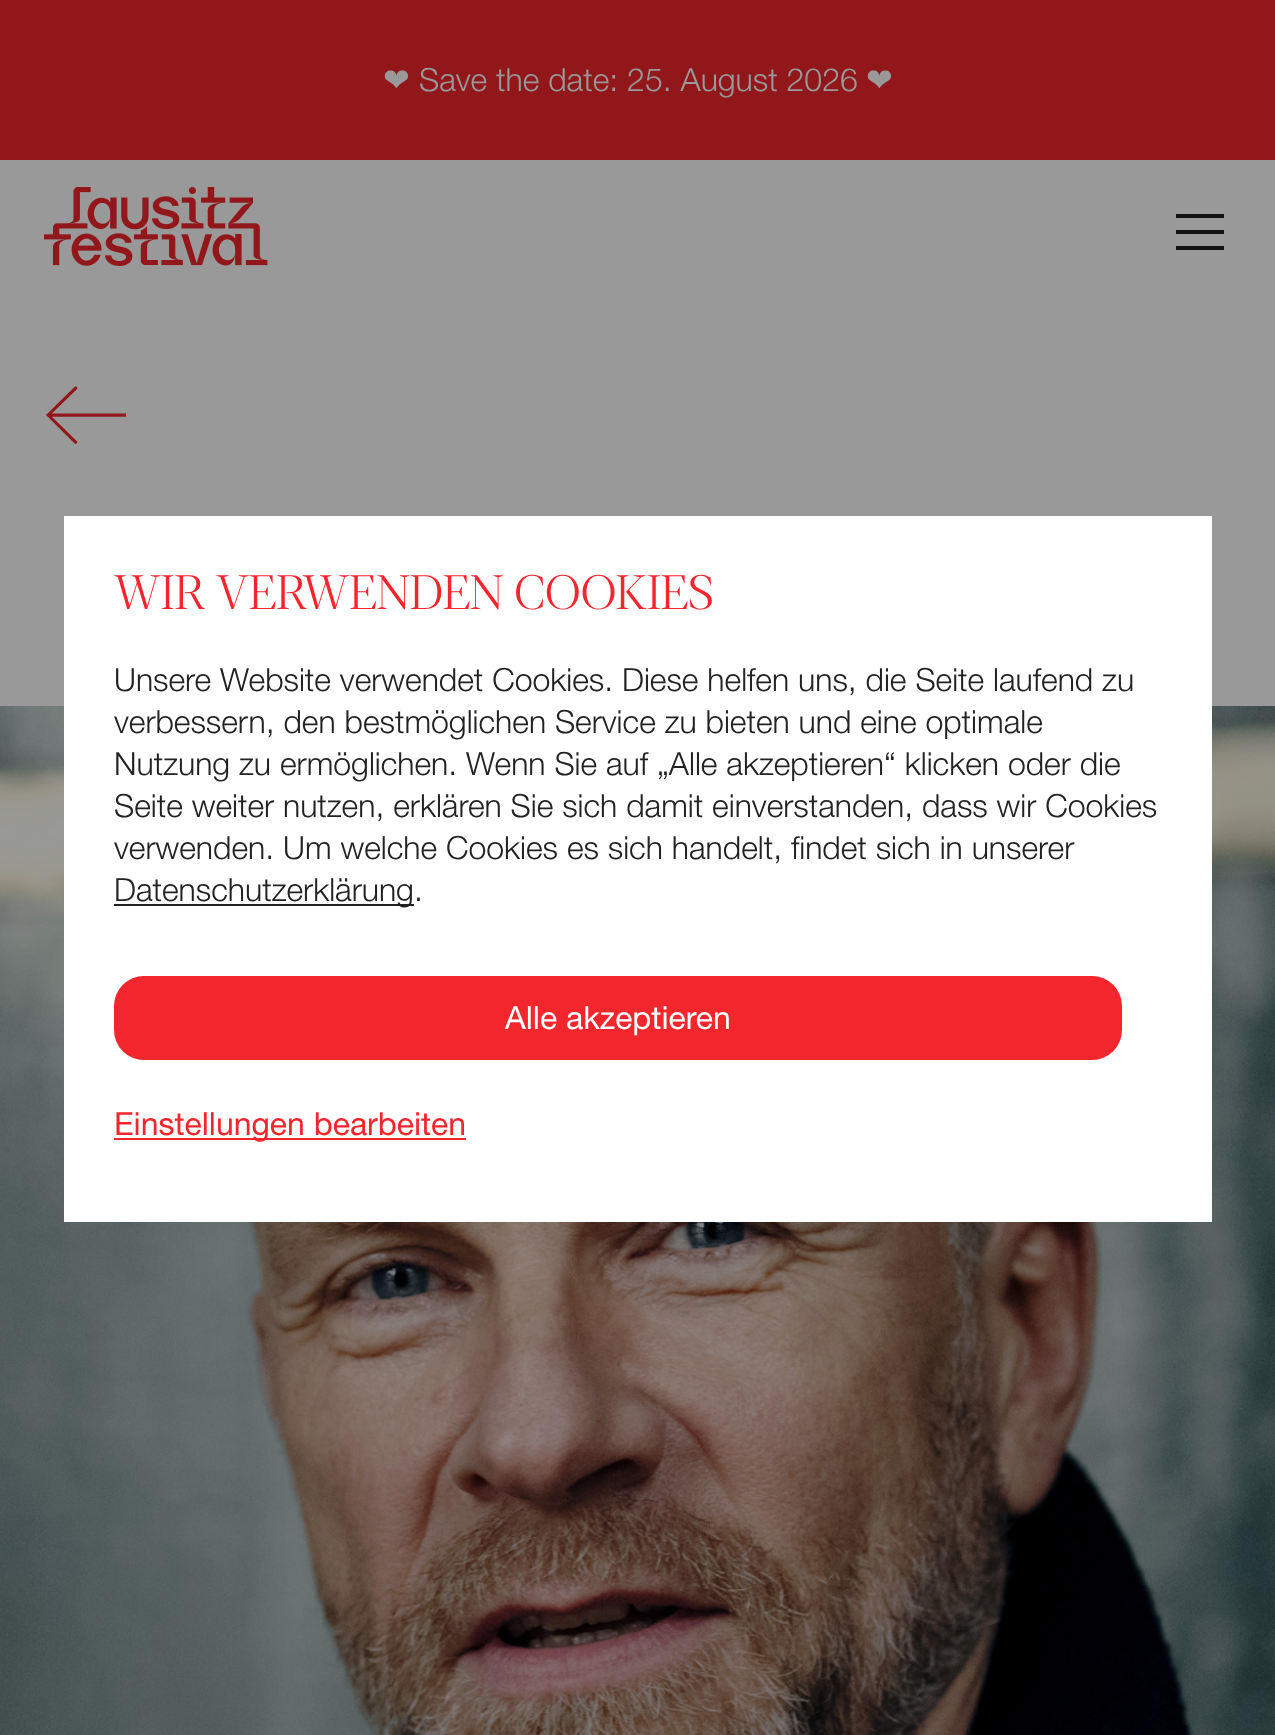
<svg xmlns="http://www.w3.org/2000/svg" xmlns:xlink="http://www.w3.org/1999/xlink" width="1275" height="1735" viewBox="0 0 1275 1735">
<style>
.cls-1{font:32px DejaVu Sans;fill:#999999}
.cls-2{font:300 32px 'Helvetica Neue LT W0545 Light';fill:#999999}
.cls-3{font:300 48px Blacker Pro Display;fill:#f4262d}
.cls-4{font:300 32px 'Helvetica Neue LT W0545 Light';fill:#222222}
.cls-5{font:32px 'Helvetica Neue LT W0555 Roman';fill:#ffffff}
.cls-6{font:32px 'Helvetica Neue LT W0555 Roman';fill:#f4262d}
</style>
<rect width="100%" height="100%" fill="#999999"/>
<rect fill="#92171b" x="0" y="0" width="1275" height="160"/>
<image xlink:href="image0.png" x="44" y="186" width="224" height="80"/>
<rect fill="#131313" x="1176" y="214" width="48" height="4"/>
<rect fill="#131313" x="1176" y="230" width="48" height="4"/>
<rect fill="#131313" x="1176" y="246" width="48" height="4"/>
<image xlink:href="image1.png" x="46" y="386" width="80" height="58"/>
<image xlink:href="image2.png" x="0" y="706" width="1275" height="1029"/>
<rect fill="#ffffff" x="64" y="516" width="1148" height="706"/>
<rect fill="#222222" x="114" y="904" width="300" height="2"/>
<rect fill="#f4262d" x="114" y="976" width="1008" height="84" rx="30"/>
<rect fill="#f4262d" x="114" y="1138" width="352" height="2"/>
<text class="cls-1" x="383" y="91">❤</text>
<text class="cls-2" x="419" y="91">Save the date: 25. August 2026</text>
<text class="cls-1" x="866" y="91">❤</text>
<text class="cls-3" x="114" y="609">WIR VERWENDEN COOKIES</text>
<text class="cls-4"><tspan x="114" y="691">Unsere Website verwendet Cookies. Diese helfen uns, die Seite laufend zu</tspan><tspan x="114" y="733">verbessern, den bestmöglichen Service zu bieten und eine optimale</tspan><tspan x="114" y="775">Nutzung zu ermöglichen. Wenn Sie auf „Alle akzeptieren“ klicken oder die</tspan><tspan x="114" y="817">Seite weiter nutzen, erklären Sie sich damit einverstanden, dass wir Cookies</tspan><tspan x="114" y="859">verwenden. Um welche Cookies es sich handelt, findet sich in unserer</tspan><tspan x="114" y="901">Datenschutzerklärung.</tspan></text>
<text class="cls-5" x="505" y="1029">Alle akzeptieren</text>
<text class="cls-6" x="114" y="1135">Einstellungen bearbeiten</text>
</svg>
